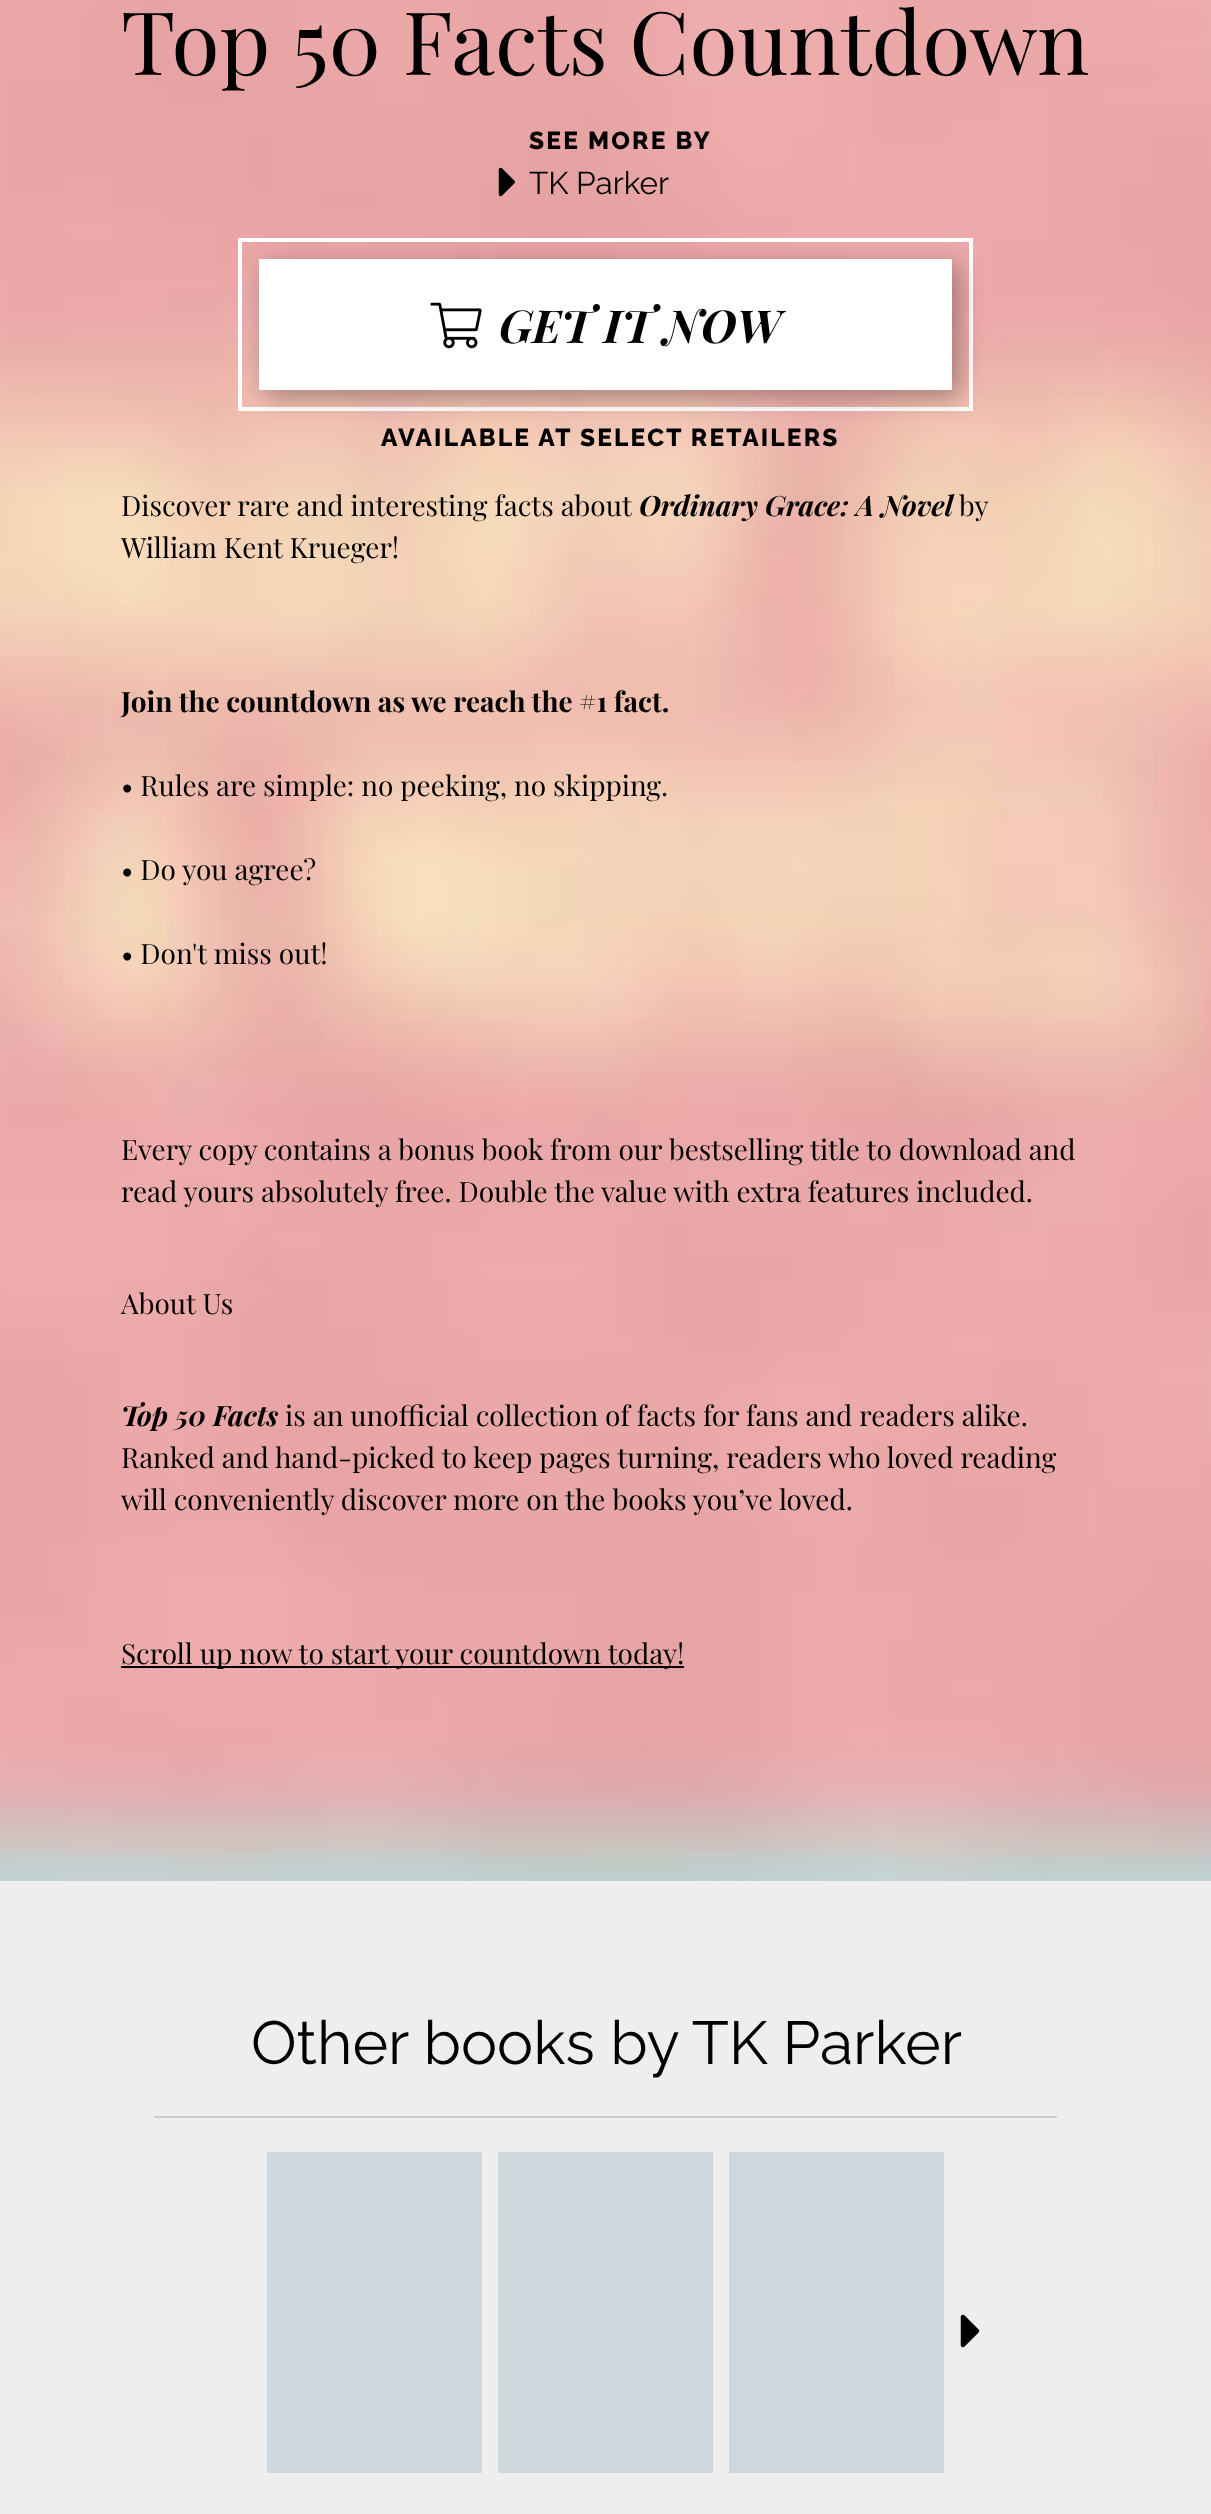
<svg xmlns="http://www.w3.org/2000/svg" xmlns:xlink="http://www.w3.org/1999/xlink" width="1211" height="2514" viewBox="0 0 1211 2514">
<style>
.cls-1{font:87.5px Playfair Display;fill:#000000}
.cls-2{font:800 24.5px Raleway;letter-spacing:2.2px;fill:#000000}
.cls-3{font:31.5px Raleway;fill:#000000}
.cls-4{font:italic bold 45.5px Playfair Display;fill:#000000}
.cls-5{font:28px Playfair Display;fill:#000000}
.cls-6{font:italic bold 28px Playfair Display;fill:#000000}
.cls-7{font:bold 28px Playfair Display;fill:#000000}
.cls-8{font:60.75px Raleway;fill:#000000}
</style>
<rect width="100%" height="100%" fill="#ffffff"/>
<image xlink:href="image0.png" x="0" y="0" width="1211" height="1881"/>
<image xlink:href="image1.png" x="498" y="167" width="17" height="30"/>
<rect fill="none" stroke="#ffffff" stroke-width="4" x="240" y="240" width="731" height="169"/>
<rect fill="#000000" fill-opacity="0.3" filter="blur(12px)" x="266" y="266" width="693" height="131"/>
<rect fill="#ffffff" x="259" y="259" width="693" height="131"/>
<image xlink:href="image2.png" x="430" y="302" width="52" height="47"/>
<rect fill="#000000" x="121" y="1666" width="563" height="2"/>
<rect fill="#eeeeee" x="0" y="1881" width="1211" height="72"/>
<rect fill="#eeeeee" x="0" y="1953" width="1211" height="561"/>
<rect fill="#cccccc" x="154" y="2116" width="903" height="2"/>
<rect fill="#cfd8dc" x="267" y="2152" width="215" height="321"/>
<rect fill="#cfd8dc" x="498" y="2152" width="215" height="321"/>
<rect fill="#cfd8dc" x="729" y="2152" width="215" height="321"/>
<image xlink:href="image3.png" x="960" y="2314" width="20" height="34"/>
<text class="cls-1" x="121" y="75">Top 50 Facts Countdown</text>
<text class="cls-2" x="529" y="149">SEE MORE BY</text>
<text class="cls-3" x="529" y="194">TK Parker</text>
<text class="cls-4" x="499" y="343">GET IT NOW</text>
<text class="cls-2" x="381" y="446">AVAILABLE AT SELECT RETAILERS</text>
<text class="cls-5" x="121" y="516">Discover rare and interesting facts about</text>
<text class="cls-6" x="639" y="516">Ordinary Grace: A Novel</text>
<text class="cls-5" x="959" y="516">by</text>
<text class="cls-5" x="121" y="558">William Kent Krueger!</text>
<text class="cls-7" x="121" y="712">Join the countdown as we reach the #1 fact.</text>
<text class="cls-5" x="121" y="796">• Rules are simple: no peeking, no skipping.</text>
<text class="cls-5" x="121" y="880">• Do you agree?</text>
<text class="cls-5" x="121" y="964">• Don't miss out!</text>
<text class="cls-5"><tspan x="121" y="1160">Every copy contains a bonus book from our bestselling title to download and</tspan><tspan x="121" y="1202">read yours absolutely free. Double the value with extra features included.</tspan></text>
<text class="cls-5" x="121" y="1314">About Us</text>
<text class="cls-6" x="121" y="1426">Top 50 Facts</text>
<text class="cls-5" x="285" y="1426">is an unofficial collection of facts for fans and readers alike.</text>
<text class="cls-5"><tspan x="121" y="1468">Ranked and hand-picked to keep pages turning, readers who loved reading</tspan><tspan x="121" y="1510">will conveniently discover more on the books you’ve loved.</tspan></text>
<text class="cls-5" x="121" y="1664">Scroll up now to start your countdown today!</text>
<text class="cls-8" x="251" y="2064">Other books by TK Parker</text>
</svg>
